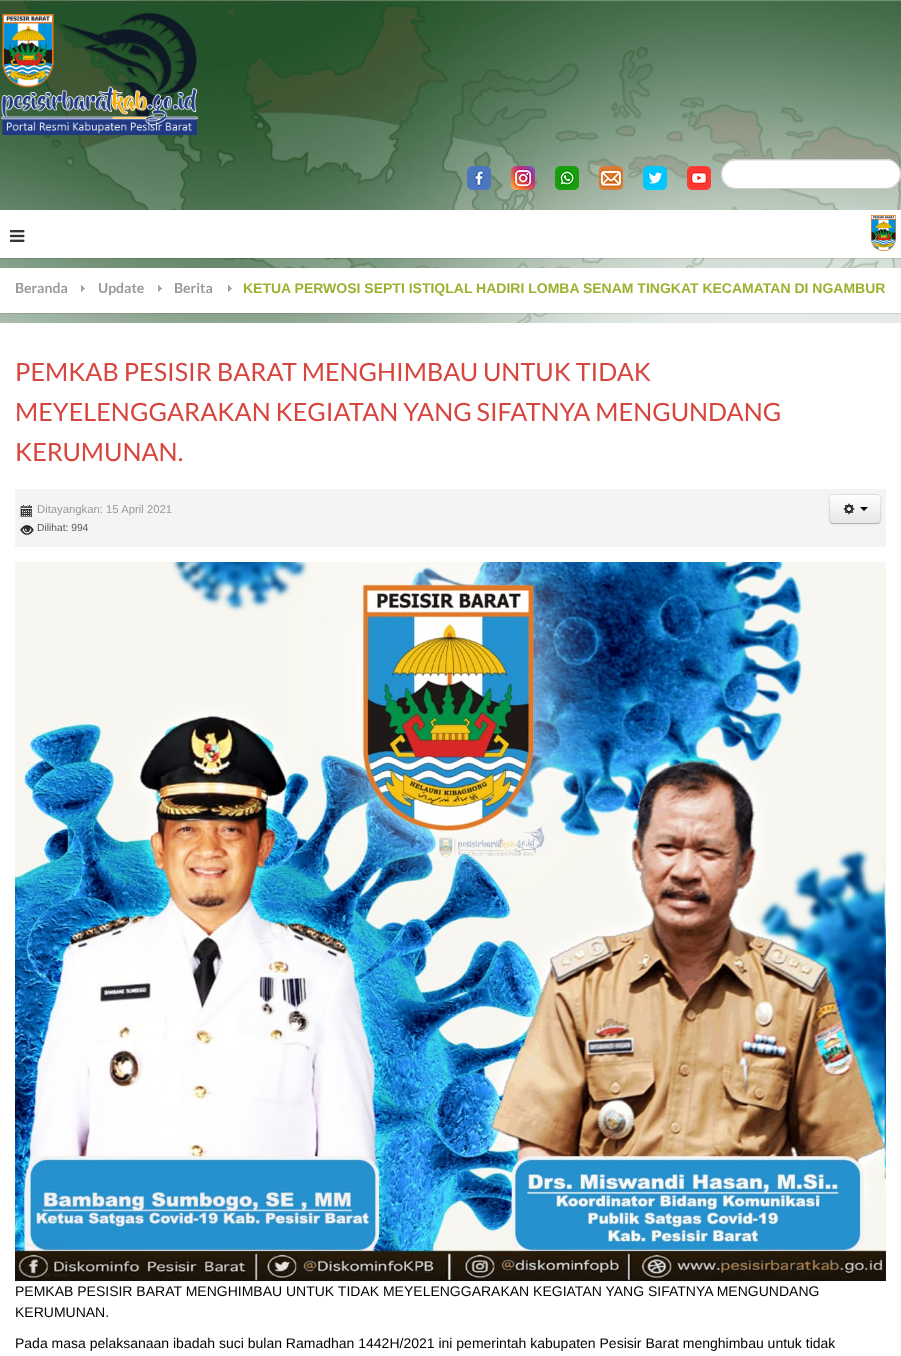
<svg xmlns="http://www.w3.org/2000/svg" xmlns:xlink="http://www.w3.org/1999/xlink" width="901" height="1356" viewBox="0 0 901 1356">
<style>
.cls-1{font:bold 14px Lato;fill:#999999}
.cls-2{font:bold 14px Liberation Sans;fill:#9faf30}
.cls-3{font:25.2px Lato;fill:#d6463f}
.cls-4{font:11.3px Liberation Sans;fill:#999999}
.cls-5{font:10.25px Liberation Sans;fill:#595959}
.cls-6{font:14px Liberation Sans;fill:#000000}
</style>
<defs>
<clipPath id="clip1"><rect x="829" y="494" width="52" height="30" rx="4"/></clipPath>
<linearGradient id="g1" gradientUnits="userSpaceOnUse" x1="855" y1="495" x2="855" y2="523"><stop offset="0" stop-color="#ffffff"/><stop offset="1" stop-color="#e6e6e6"/></linearGradient>
</defs>
<rect width="100%" height="100%" fill="#ffffff"/>
<image xlink:href="image0.png" x="0" y="0" width="901" height="323"/>
<image xlink:href="image1.png" x="1" y="12" width="197" height="123"/>
<image xlink:href="image2.png" x="467" y="166" width="24" height="24"/>
<image xlink:href="image3.png" x="511" y="166" width="24" height="24"/>
<image xlink:href="image4.png" x="555" y="166" width="24" height="24"/>
<image xlink:href="image5.png" x="599" y="166" width="24" height="24"/>
<image xlink:href="image6.png" x="643" y="166" width="24" height="24"/>
<image xlink:href="image7.png" x="687" y="166" width="24" height="24"/>
<rect fill="#ffffff" x="721" y="159" width="180" height="30" rx="15"/>
<path fill="#ececec" d="M736 161H889C897 163 901 170 900 177C900 174 900 171 899 169C893 155 870 160 861 160H761C751 160 720 154 722 175C722 168 727 161 736 161Z"/>
<rect fill="none" stroke="#cccccc" x="721.5" y="159.5" width="179" height="29" rx="14.5"/>
<rect fill="#000000" fill-opacity="0.1" x="0" y="258" width="901" height="1"/>
<rect fill="#ffffff" x="0" y="210" width="901" height="48"/>
<image xlink:href="image8.png" x="10" y="230" width="15" height="12"/>
<image xlink:href="image9.png" x="871" y="215" width="25" height="36"/>
<rect fill="#000000" fill-opacity="0.1" x="0" y="313" width="901" height="1"/>
<rect fill="#ffffff" x="0" y="268" width="901" height="45"/>
<image xlink:href="image10.png" x="81" y="285" width="4" height="7"/>
<image xlink:href="image10.png" x="158" y="285" width="4" height="7"/>
<image xlink:href="image10.png" x="228" y="285" width="4" height="7"/>
<rect fill="#f4f4f4" x="15" y="489" width="871" height="58"/>
<image xlink:href="image11.png" x="21" y="505" width="11" height="12"/>
<image xlink:href="image12.png" x="20" y="505" width="12" height="12"/>
<image xlink:href="image13.png" x="20" y="525" width="14" height="10"/>
<rect fill="#000000" fill-opacity="0.05" filter="blur(1px)" x="829" y="495" width="52" height="30" rx="4"/>
<rect fill="#f5f5f5" x="829" y="494" width="52" height="30" rx="4"/>
<g clip-path="url(#clip1)">
<rect fill="url(#g1)" x="829" y="495" width="52" height="28"/>
</g>
<path fill="#ffffff" d="M833 496H877C879 496 880 497 880 499C880 493 874 495 870 495H840C836 495 830 493 830 499C830 497 831 496 833 496Z"/>
<path fill="none" stroke="#b3b3b3" d="M879.5 522.5C879 523 878 523.5 877 523.5H833C832 523.5 831 523 830.5 522.5"/>
<path fill="none" stroke="#000000" stroke-opacity="0.1" d="M830.5 522.5C828.5 520.5 829.5 512 829.5 509C829.5 494.5 826.5 494.5 840.5 494.5H869.5C883.5 494.5 880.5 494.5 880.5 509C880.5 512 881.5 520.5 879.5 522.5"/>
<image xlink:href="image14.png" x="843" y="503" width="12" height="12"/>
<path fill="#000000" d="M860 507H868L864 511Z"/>
<image xlink:href="image15.png" x="15" y="562" width="871" height="719"/>
<text class="cls-1" x="15" y="293">Beranda</text>
<text class="cls-1" x="98" y="293">Update</text>
<text class="cls-1" x="174" y="293">Berita</text>
<text class="cls-2" x="243" y="293">KETUA PERWOSI SEPTI ISTIQLAL HADIRI LOMBA SENAM TINGKAT KECAMATAN DI NGAMBUR</text>
<text class="cls-3"><tspan x="15" y="381">PEMKAB PESISIR BARAT MENGHIMBAU UNTUK TIDAK</tspan><tspan x="15" y="421">MEYELENGGARAKAN KEGIATAN YANG SIFATNYA MENGUNDANG</tspan><tspan x="15" y="461">KERUMUNAN.</tspan></text>
<text class="cls-4" x="37" y="513">Ditayangkan: 15 April 2021</text>
<text class="cls-5" x="37" y="531">Dilihat: 994</text>
<text class="cls-6"><tspan x="15" y="1296">PEMKAB PESISIR BARAT MENGHIMBAU UNTUK TIDAK MEYELENGGARAKAN KEGIATAN YANG SIFATNYA MENGUNDANG</tspan><tspan x="15" y="1317">KERUMUNAN.</tspan></text>
<text class="cls-6" x="15" y="1348">Pada masa pelaksanaan ibadah suci bulan Ramadhan 1442H/2021 ini pemerintah kabupaten Pesisir Barat menghimbau untuk tidak</text>
</svg>
